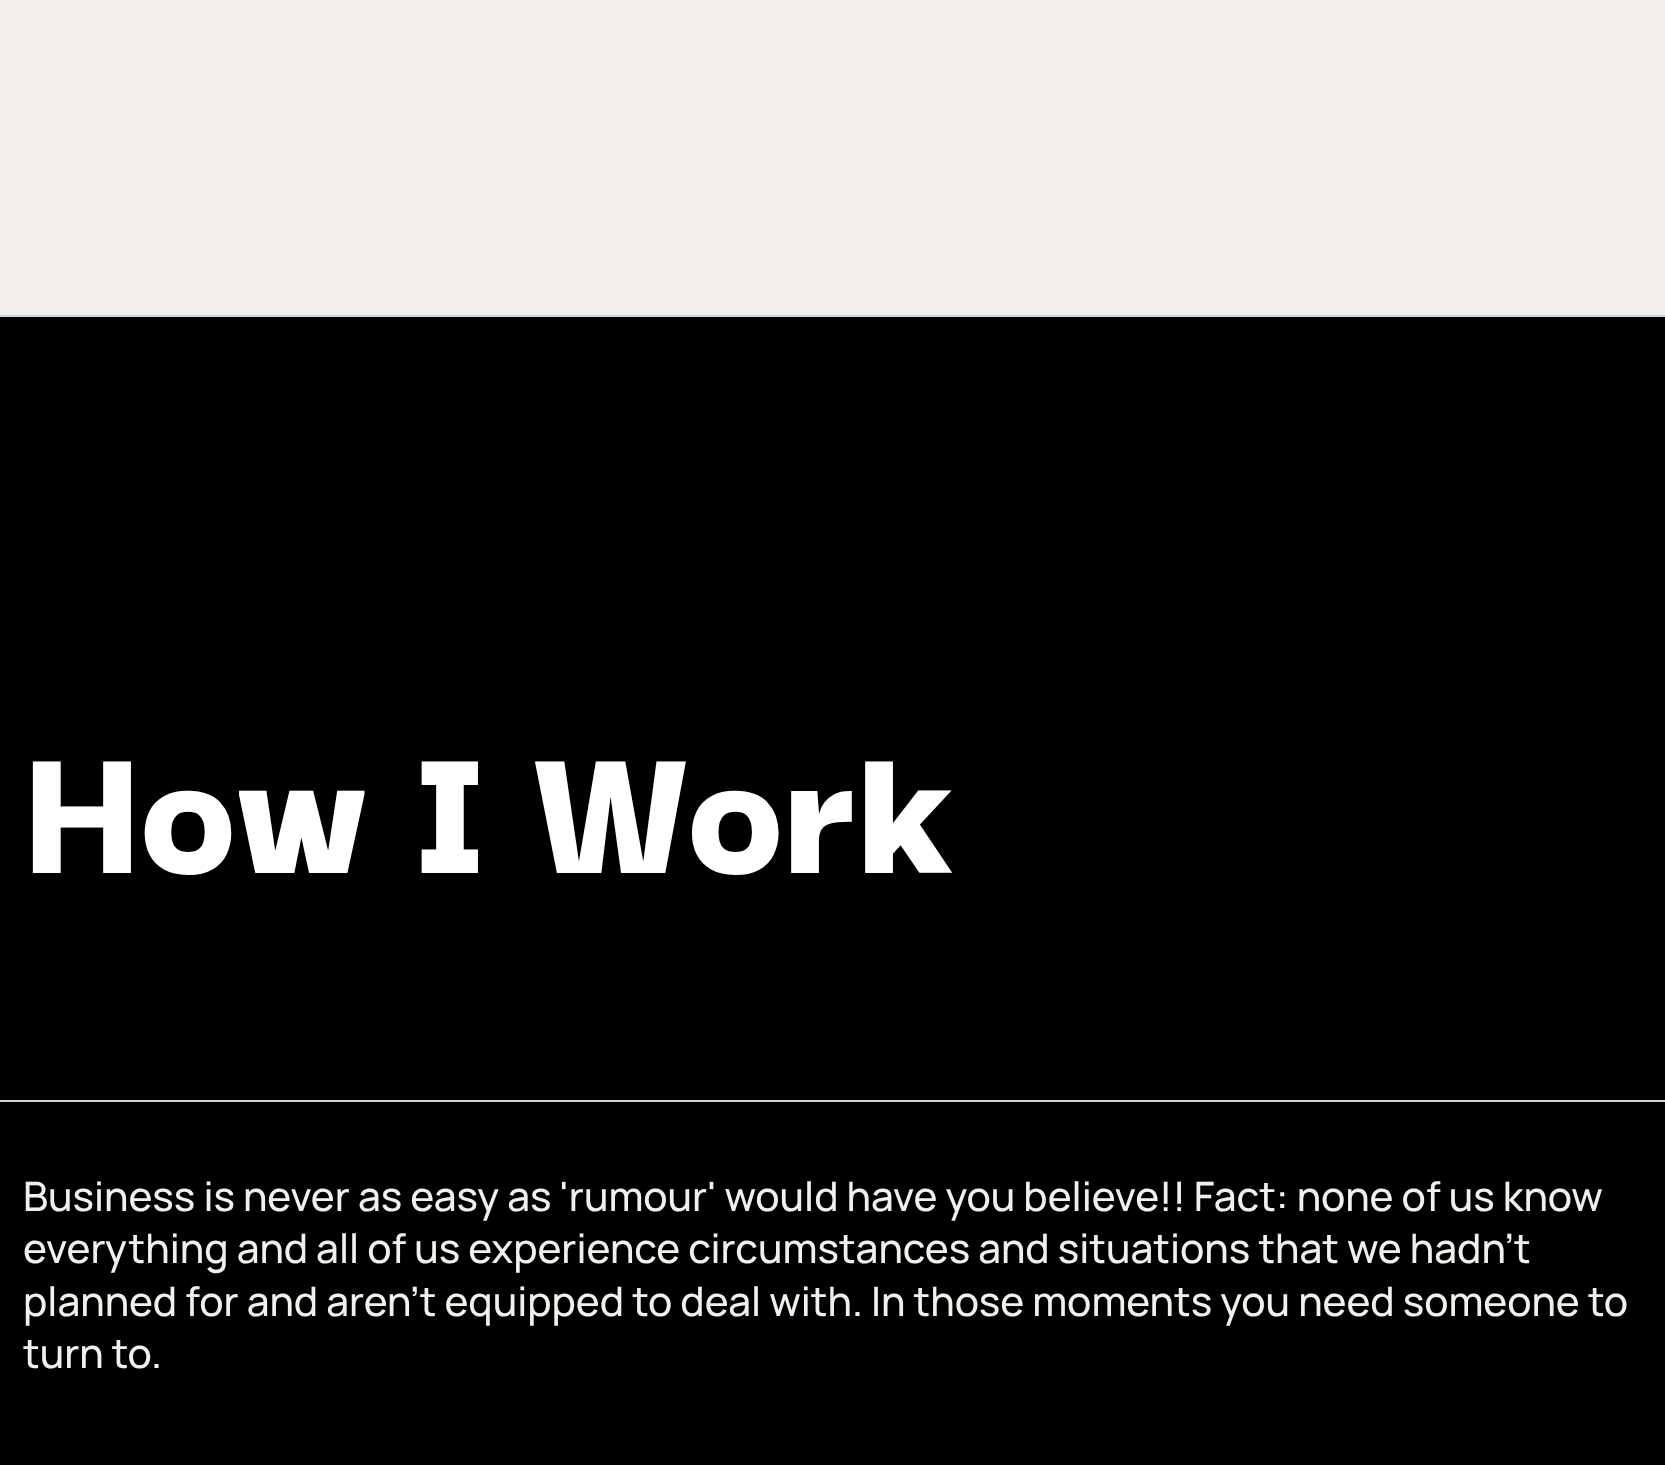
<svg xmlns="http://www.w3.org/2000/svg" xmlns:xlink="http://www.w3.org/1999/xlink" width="1665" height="1465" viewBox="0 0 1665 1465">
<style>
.cls-1{font:900 198px Darker Grotesque;fill:#ffffff}
.cls-2{font:500 40.5px Manrope;fill:#f3f0ec}
</style>
<rect width="100%" height="100%" fill="#f3f0ec"/>
<rect fill="#cbd5e0" x="0" y="315" width="1665" height="2"/>
<rect fill="#000000" x="0" y="317" width="1665" height="1148"/>
<rect fill="#cbd5e0" x="0" y="1100" width="1665" height="2"/>
<text class="cls-1" x="23" y="873">How I Work</text>
<text class="cls-2"><tspan x="23" y="1211">Business is never as easy as 'rumour' would have you believe!! Fact: none of us know</tspan><tspan x="23" y="1263">everything and all of us experience circumstances and situations that we hadn’t</tspan><tspan x="23" y="1316">planned for and aren’t equipped to deal with. In those moments you need someone to</tspan><tspan x="23" y="1368">turn to.</tspan></text>
</svg>
